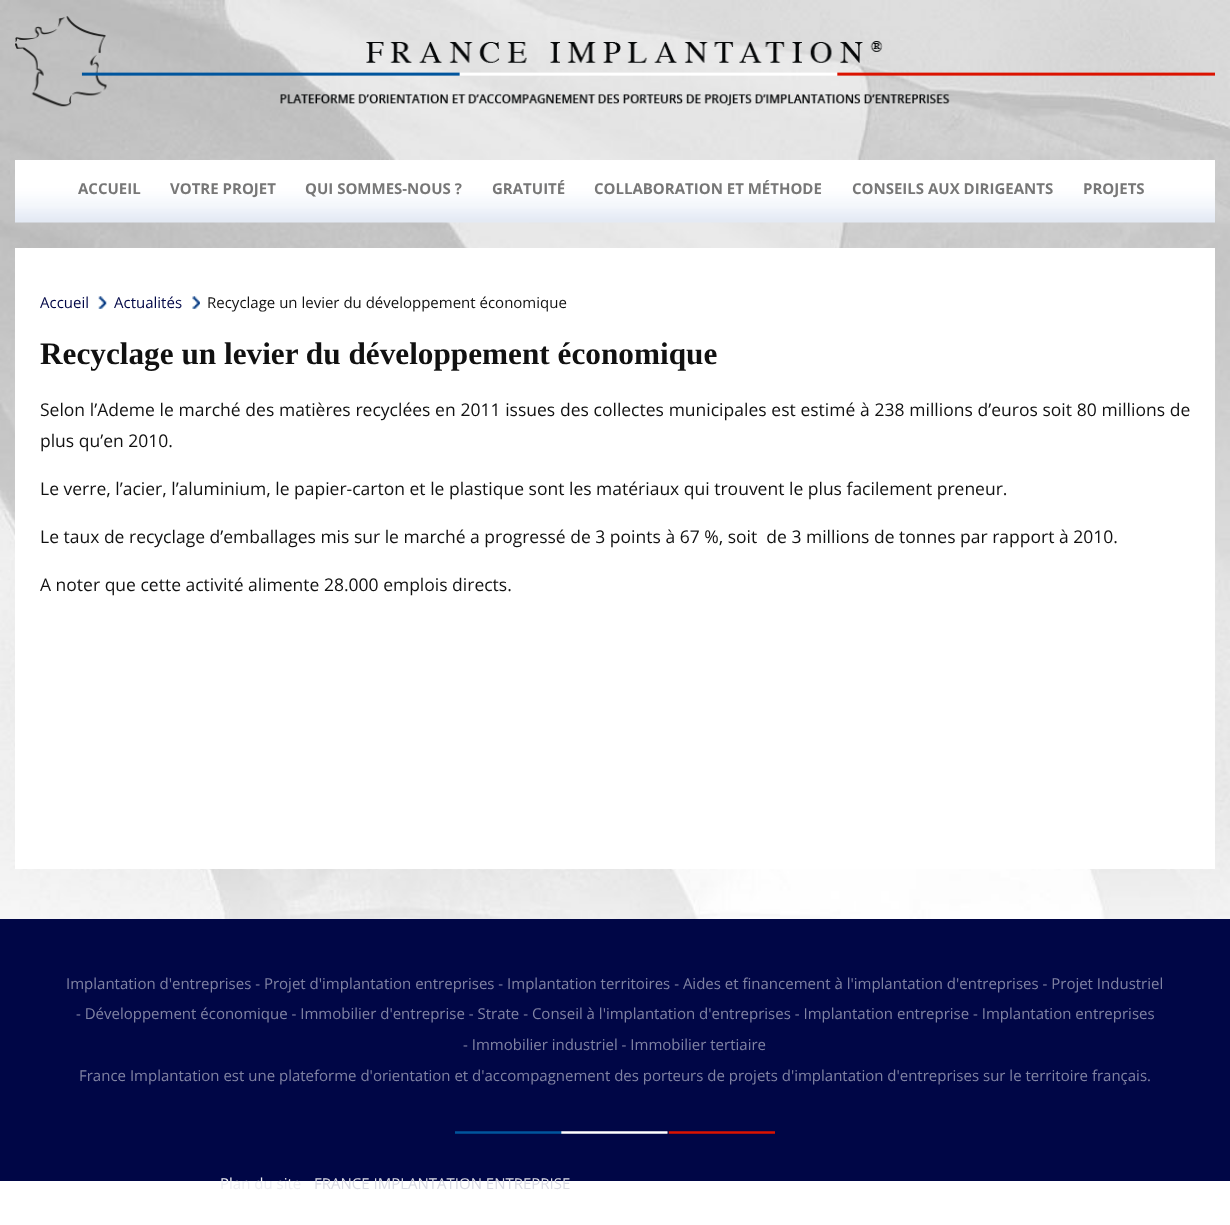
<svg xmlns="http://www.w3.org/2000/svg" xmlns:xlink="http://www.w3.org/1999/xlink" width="1230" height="1225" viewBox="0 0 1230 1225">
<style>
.cls-1{font:bold 15px Open Sans;fill:#777777}
.cls-2{font:15px Open Sans;fill:#000646}
.cls-3{font:15px Open Sans;fill:#111111}
.cls-4{font:bold 31.25px Liberation Serif;fill:#111111}
.cls-5{font:17.5px Open Sans;fill:#111111}
.cls-6{font:15px Open Sans;fill:#8083a3}
.cls-7{font:15px Open Sans;fill:#edeef2}
.cls-8{font:15px Open Sans;fill:#d9dae3}
</style>
<rect width="100%" height="100%" fill="#ffffff"/>
<image xlink:href="image0.png" x="0" y="0" width="1230" height="919"/>
<image xlink:href="image1.png" x="15" y="16" width="1200" height="91"/>
<image xlink:href="image2.png" x="15" y="160" width="1200" height="63"/>
<rect fill="#ffffff" x="15" y="248" width="1200" height="621"/>
<image xlink:href="image3.png" x="98" y="296" width="9" height="13"/>
<image xlink:href="image4.png" x="192" y="296" width="8" height="13"/>
<rect fill="#000646" x="0" y="919" width="1230" height="262"/>
<image xlink:href="image5.png" x="455" y="1131" width="320" height="3"/>
<text class="cls-1" x="78" y="194">ACCUEIL</text>
<text class="cls-1" x="170" y="194">VOTRE PROJET</text>
<text class="cls-1" x="305" y="194">QUI SOMMES-NOUS ?</text>
<text class="cls-1" x="492" y="194">GRATUITÉ</text>
<text class="cls-1" x="594" y="194">COLLABORATION ET MÉTHODE</text>
<text class="cls-1" x="852" y="194">CONSEILS AUX DIRIGEANTS</text>
<text class="cls-1" x="1083" y="194">PROJETS</text>
<text class="cls-2" x="40" y="308">Accueil</text>
<text class="cls-2" x="114" y="308">Actualités</text>
<text class="cls-3" x="207" y="308">Recyclage un levier du développement économique</text>
<text class="cls-4" x="40" y="364">Recyclage un levier du développement économique</text>
<text class="cls-5"><tspan x="40" y="416" word-spacing="0.2">Selon l’Ademe le marché des matières recyclées en 2011 issues des collectes municipales est estimé à 238 millions d’euros soit 80 millions de</tspan><tspan x="40" y="447">plus qu’en 2010.</tspan></text>
<text class="cls-5" x="40" y="495">Le verre, l’acier, l’aluminium, le papier-carton et le plastique sont les matériaux qui trouvent le plus facilement preneur.</text>
<text class="cls-5" xml:space="preserve" x="40" y="543">Le taux de recyclage d’emballages mis sur le marché a progressé de 3 points à 67 %, soit  de 3 millions de tonnes par rapport à 2010.</text>
<text class="cls-5" x="40" y="591">A noter que cette activité alimente 28.000 emplois directs.</text>
<text class="cls-6" x="66" y="989">Implantation d'entreprises - Projet d'implantation entreprises - Implantation territoires - Aides et financement à l'implantation d'entreprises - Projet Industriel</text>
<text class="cls-6" x="76" y="1019">- Développement économique - Immobilier d'entreprise - Strate - Conseil à l'implantation d'entreprises - Implantation entreprise - Implantation entreprises</text>
<text class="cls-6" x="463" y="1050">- Immobilier industriel - Immobilier tertiaire</text>
<text class="cls-6" x="79" y="1081">France Implantation est une plateforme d'orientation et d'accompagnement des porteurs de projets d'implantation d'entreprises sur le territoire français.</text>
<text class="cls-7" x="220" y="1189">Plan du site</text>
<text class="cls-8" x="314" y="1189">FRANCE IMPLANTATION ENTREPRISE</text>
</svg>
